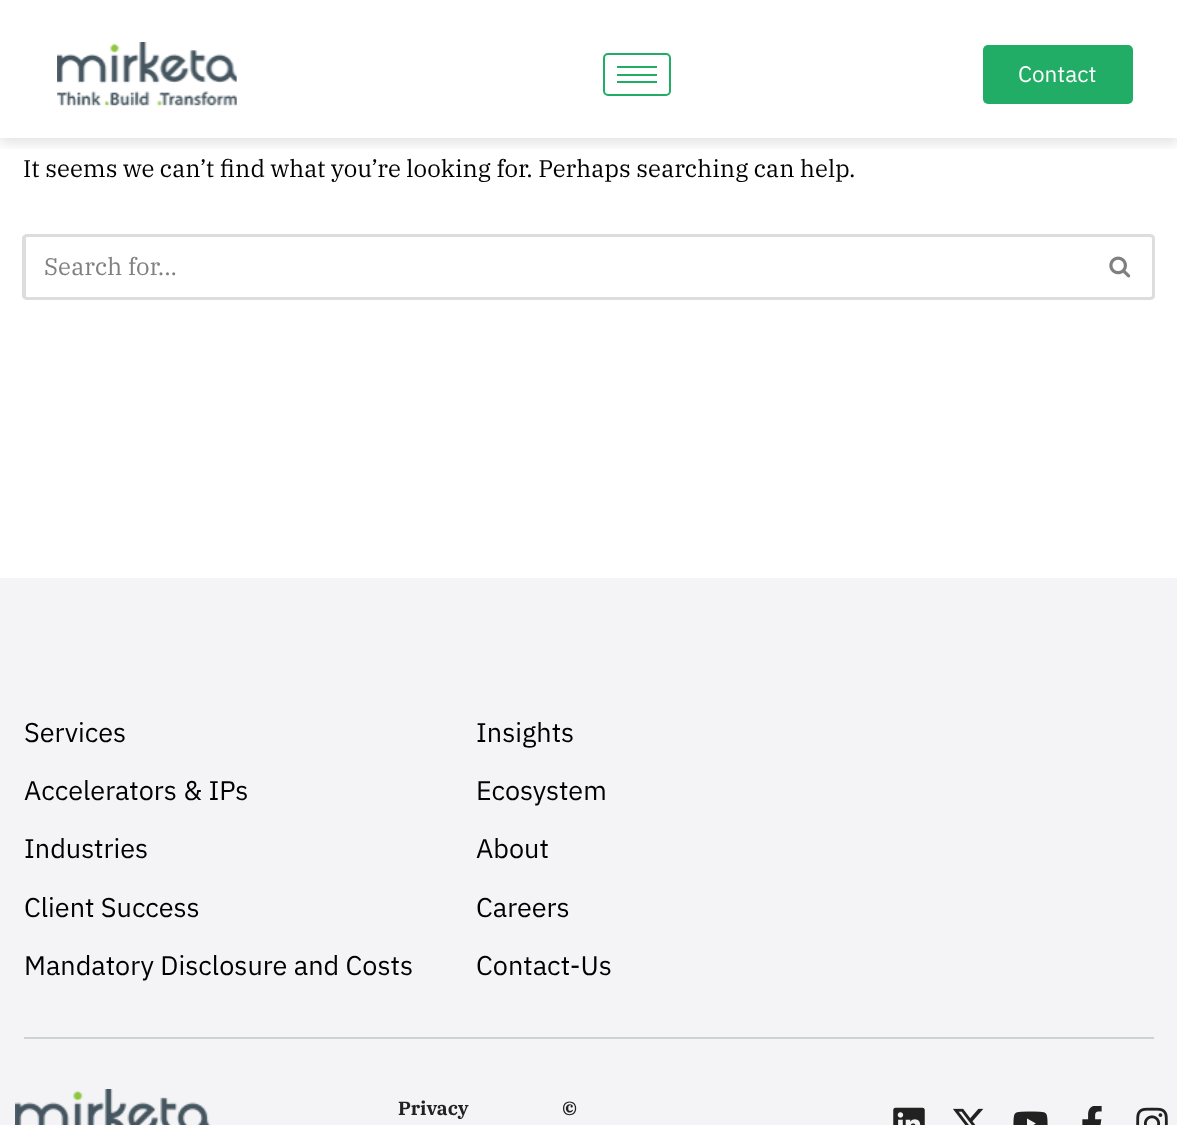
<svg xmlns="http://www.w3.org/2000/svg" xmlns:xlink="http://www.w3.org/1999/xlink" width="1177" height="1125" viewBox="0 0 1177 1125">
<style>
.cls-1{font:22.5px IBM Plex Sans;fill:#ffffff}
.cls-2{font:24px IBM Plex Serif;fill:#000000}
.cls-3{font:24px IBM Plex Serif;fill:#808080}
.cls-4{font:27px IBM Plex Sans;fill:#000000}
.cls-5{font:bold 19px IBM Plex Serif;fill:#212121}
</style>
<defs>
<clipPath id="clip1"><rect x="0" y="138" width="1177" height="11"/></clipPath>
</defs>
<rect width="100%" height="100%" fill="#ffffff"/>
<g clip-path="url(#clip1)">
<rect fill="#000000" fill-opacity="0.1" filter="blur(6px)" x="0" y="6" width="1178" height="138"/>
</g>
<image xlink:href="image0.png" x="57" y="42" width="180" height="64"/>
<rect fill="none" stroke="#21ad66" stroke-width="2" x="604" y="54" width="66" height="41" rx="4"/>
<rect fill="#21ad66" x="617" y="66" width="40" height="2"/>
<rect fill="#21ad66" x="617" y="74" width="40" height="2"/>
<rect fill="#21ad66" x="617" y="81" width="40" height="2"/>
<rect fill="#21ad66" x="983" y="45" width="150" height="59" rx="5"/>
<path fill="#dddddd" fill-rule="evenodd" d="M27 234H1088V300H27C25 300 22 298 22 296V238C22 236 25 234 27 234ZM27 237H1088V297H27C26 297 26 296 26 296V238C26 238 26 237 27 237Z"/>
<path fill="#dddddd" fill-rule="evenodd" d="M1088 234H1150C1153 234 1155 236 1155 238V296C1155 298 1153 300 1150 300H1088ZM1088 237H1150C1151 237 1152 238 1152 238V296C1152 296 1151 297 1150 297H1088Z"/>
<image xlink:href="image1.png" x="1109" y="256" width="22" height="22"/>
<rect fill="#f4f4f6" x="0" y="578" width="1177" height="547"/>
<rect fill="#cdd2d6" x="24" y="1037" width="1130" height="2"/>
<image xlink:href="image2.png" x="15" y="1089" width="196" height="36"/>
<image xlink:href="image3.png" x="893" y="1107" width="32" height="18"/>
<image xlink:href="image4.png" x="953" y="1108" width="31" height="17"/>
<image xlink:href="image5.png" x="1013" y="1111" width="35" height="14"/>
<image xlink:href="image6.png" x="1082" y="1106" width="20" height="19"/>
<image xlink:href="image7.png" x="1136" y="1107" width="32" height="18"/>
<text class="cls-1" x="1018" y="82">Contact</text>
<text class="cls-2" x="23" y="177">It seems we can’t find what you’re looking for. Perhaps searching can help.</text>
<text class="cls-3" x="44" y="275">Search for...</text>
<text class="cls-4" x="24" y="742">Services</text>
<text class="cls-4" x="24" y="800">Accelerators &amp; IPs</text>
<text class="cls-4" x="24" y="858">Industries</text>
<text class="cls-4" x="24" y="917">Client Success</text>
<text class="cls-4" x="24" y="975">Mandatory Disclosure and Costs</text>
<text class="cls-4" x="476" y="742">Insights</text>
<text class="cls-4" x="476" y="800">Ecosystem</text>
<text class="cls-4" x="476" y="858">About</text>
<text class="cls-4" x="476" y="917">Careers</text>
<text class="cls-4" x="476" y="975">Contact-Us</text>
<text class="cls-5" x="398" y="1115">Privacy</text>
<text class="cls-5" x="562" y="1115">©</text>
</svg>
